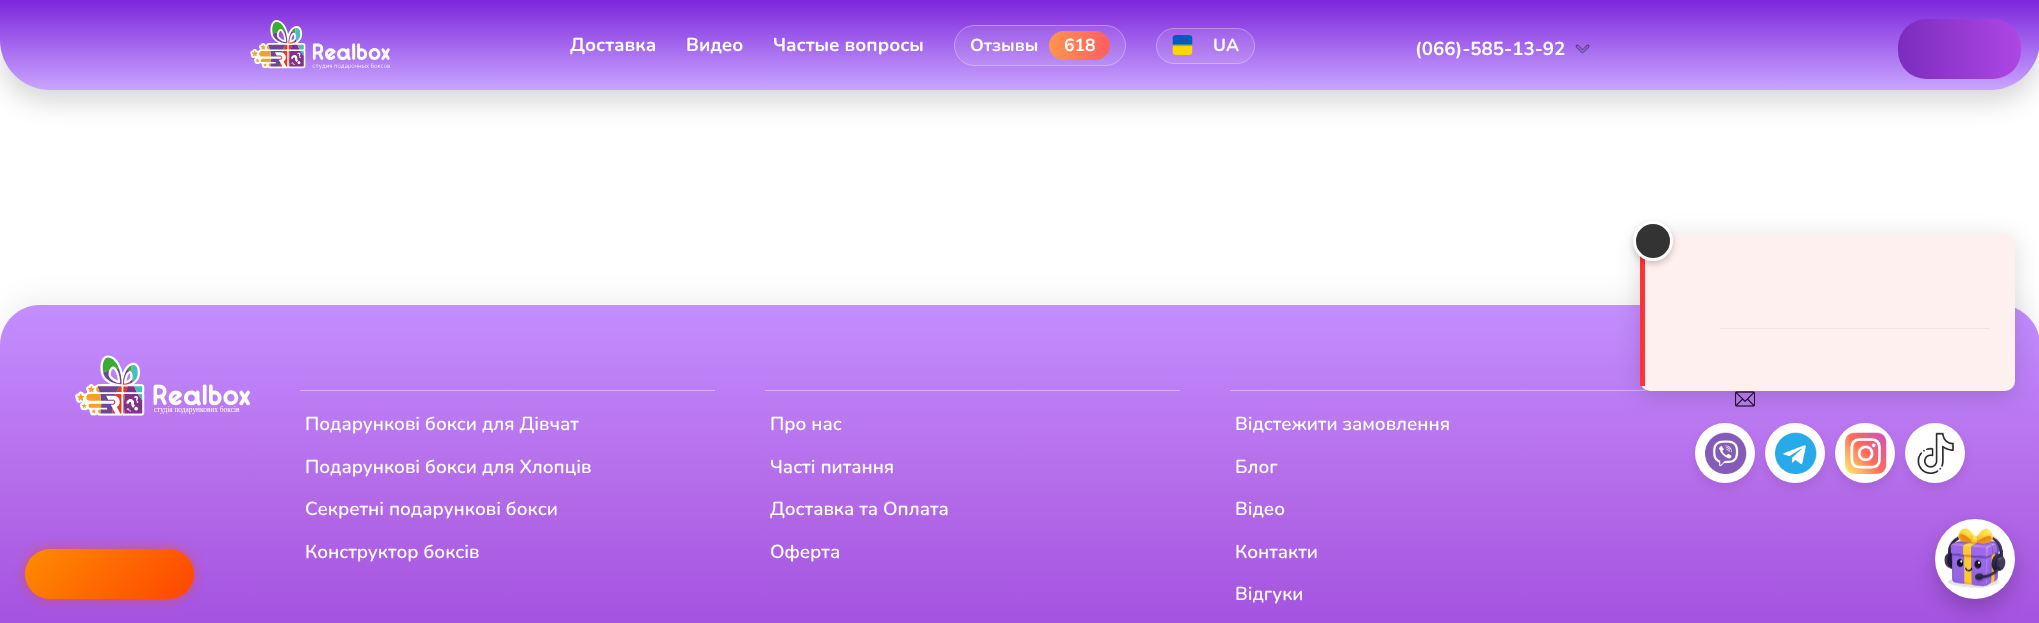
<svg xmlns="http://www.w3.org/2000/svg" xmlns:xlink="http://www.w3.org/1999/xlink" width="2039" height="623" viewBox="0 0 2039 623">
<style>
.cls-1{font:bold 18.75px Nunito;fill:#ffffff}
.cls-2{font:bold 17.5px Nunito;fill:#ffffff}
.cls-3{font:600 18.75px Nunito;fill:#ffffff}
</style>
<defs>
<linearGradient id="g1" gradientUnits="userSpaceOnUse" x1="1020" y1="0" x2="1020" y2="90"><stop offset="0" stop-color="#7d26db"/><stop offset="1" stop-color="#c9a5ff"/></linearGradient>
<linearGradient id="g2" gradientUnits="userSpaceOnUse" x1="1049" y1="46" x2="1110" y2="46"><stop offset="0" stop-color="#ff944d"/><stop offset="1" stop-color="#ff5e62"/></linearGradient>
<linearGradient id="g3" gradientUnits="userSpaceOnUse" x1="1898" y1="49" x2="2021" y2="49"><stop offset="0" stop-color="#7b2cbf"/><stop offset="1" stop-color="#ae47e4"/></linearGradient>
<linearGradient id="g4" gradientUnits="userSpaceOnUse" x1="1020" y1="305" x2="1020" y2="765"><stop offset="0" stop-color="#c38eff"/><stop offset="0.4" stop-color="#b46be8"/><stop offset="1" stop-color="#9439d9"/></linearGradient>
<linearGradient id="g5" gradientUnits="userSpaceOnUse" x1="55" y1="519" x2="164" y2="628"><stop offset="0" stop-color="#ff8c00"/><stop offset="1" stop-color="#ff4500"/></linearGradient>
</defs>
<rect width="100%" height="100%" fill="#ffffff"/>
<rect fill="#000000" fill-opacity="0.15" filter="blur(12.5px)" x="0" y="13" width="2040" height="90" rx="50"/>
<path fill="url(#g1)" d="M0 0H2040V40C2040 67.5 2017.5 90 1990 90H50C22.5 90 0 67.5 0 40Z"/>
<image xlink:href="image0.png" x="250" y="20" width="140" height="50"/>
<rect fill="#ffffff" fill-opacity="0.1" x="954" y="25" width="172" height="41" rx="20.5"/>
<rect fill="none" stroke="#ffffff" stroke-opacity="0.3" x="954.5" y="25.5" width="171" height="40" rx="20"/>
<rect fill="url(#g2)" x="1049" y="31" width="61" height="29" rx="14.5"/>
<rect fill="#ffffff" fill-opacity="0.1" x="1156" y="28" width="99" height="36" rx="18"/>
<rect fill="none" stroke="#ffffff" stroke-opacity="0.3" x="1156.5" y="28.5" width="98" height="35" rx="17.5"/>
<image xlink:href="image1.png" x="1172" y="35" width="21" height="20"/>
<image xlink:href="image2.png" x="1575" y="44" width="15" height="10"/>
<rect fill="url(#g3)" x="1898" y="19" width="123" height="60" rx="28"/>
<rect fill="#000000" fill-opacity="0.05" filter="blur(12.5px)" x="0" y="295" width="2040" height="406" rx="40"/>
<path fill="url(#g4)" d="M40 305H2000C2022 305 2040 323 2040 345V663H0V345C0 323 18 305 40 305Z"/>
<rect fill="#d7b2f8" x="1230" y="390" width="415" height="1"/>
<image xlink:href="image4.png" x="1735" y="391" width="20" height="16"/>
<rect fill="#000000" fill-opacity="0.08" filter="blur(5px)" x="1695" y="428" width="60" height="60" rx="30"/>
<circle fill="#ffffff" cx="1725" cy="453" r="30"/>
<image xlink:href="image5.png" x="1705" y="432" width="42" height="42"/>
<rect fill="#000000" fill-opacity="0.08" filter="blur(5px)" x="1765" y="428" width="60" height="60" rx="30"/>
<circle fill="#ffffff" cx="1795" cy="453" r="30"/>
<image xlink:href="image6.png" x="1775" y="432" width="42" height="42"/>
<rect fill="#000000" fill-opacity="0.08" filter="blur(5px)" x="1835" y="428" width="60" height="60" rx="30"/>
<circle fill="#ffffff" cx="1865" cy="453" r="30"/>
<image xlink:href="image7.png" x="1845" y="432" width="42" height="42"/>
<rect fill="#000000" fill-opacity="0.08" filter="blur(5px)" x="1905" y="428" width="60" height="60" rx="30"/>
<circle fill="#ffffff" cx="1935" cy="453" r="30"/>
<image xlink:href="image8.png" x="1917" y="432" width="37" height="42"/>
<rect fill="#000000" fill-opacity="0.15" filter="blur(12.5px)" x="1640" y="239" width="375" height="157" rx="10"/>
<rect fill="#fff0f0" x="1640" y="234" width="375" height="157" rx="10"/>
<rect fill="#ff3333" x="1640" y="256" width="5" height="130"/>
<rect fill="#000000" fill-opacity="0.2" filter="blur(3px)" x="1633" y="224" width="40" height="40" rx="20"/>
<circle fill="#333333" stroke="#ffffff" stroke-width="3" cx="1653" cy="241" r="18.5"/>
<rect fill="#f0e2e2" x="1720" y="328" width="270" height="1"/>
<rect fill="#ff4500" fill-opacity="0.5" filter="blur(6px)" x="25" y="549" width="169" height="50" rx="25"/>
<rect fill="url(#g5)" x="25" y="549" width="169" height="50" rx="25"/>
<image xlink:href="image3.png" x="75" y="355" width="175" height="61"/>
<rect fill="#d7b2f8" x="300" y="390" width="415" height="1"/>
<rect fill="#d7b2f8" x="765" y="390" width="415" height="1"/>
<rect fill="#000000" fill-opacity="0.2" filter="blur(10px)" x="1935" y="529" width="80" height="80" rx="40"/>
<circle fill="#ffffff" cx="1975" cy="559" r="40"/>
<image xlink:href="image9.png" x="1944" y="527" width="62" height="61"/>
<text class="cls-1" x="570" y="51">Доставка</text>
<text class="cls-1" x="686" y="51">Видео</text>
<text class="cls-1" x="773" y="51">Частые вопросы</text>
<text class="cls-2" x="970" y="51">Отзывы</text>
<text class="cls-2" x="1064" y="51">618</text>
<text class="cls-2" x="1213" y="51">UA</text>
<text class="cls-1" x="1415" y="55">(066)-585-13-92</text>
<text class="cls-3" x="305" y="430">Подарункові бокси для Дівчат</text>
<text class="cls-3" x="305" y="473">Подарункові бокси для Хлопців</text>
<text class="cls-3" x="305" y="515">Секретні подарункові бокси</text>
<text class="cls-3" x="305" y="558">Конструктор боксів</text>
<text class="cls-3" x="770" y="430">Про нас</text>
<text class="cls-3" x="770" y="473">Часті питання</text>
<text class="cls-3" x="770" y="515">Доставка та Оплата</text>
<text class="cls-3" x="770" y="558">Оферта</text>
<text class="cls-3" x="1235" y="430">Відстежити замовлення</text>
<text class="cls-3" x="1235" y="473">Блог</text>
<text class="cls-3" x="1235" y="515">Відео</text>
<text class="cls-3" x="1235" y="558">Контакти</text>
<text class="cls-3" x="1235" y="600">Відгуки</text>
</svg>
